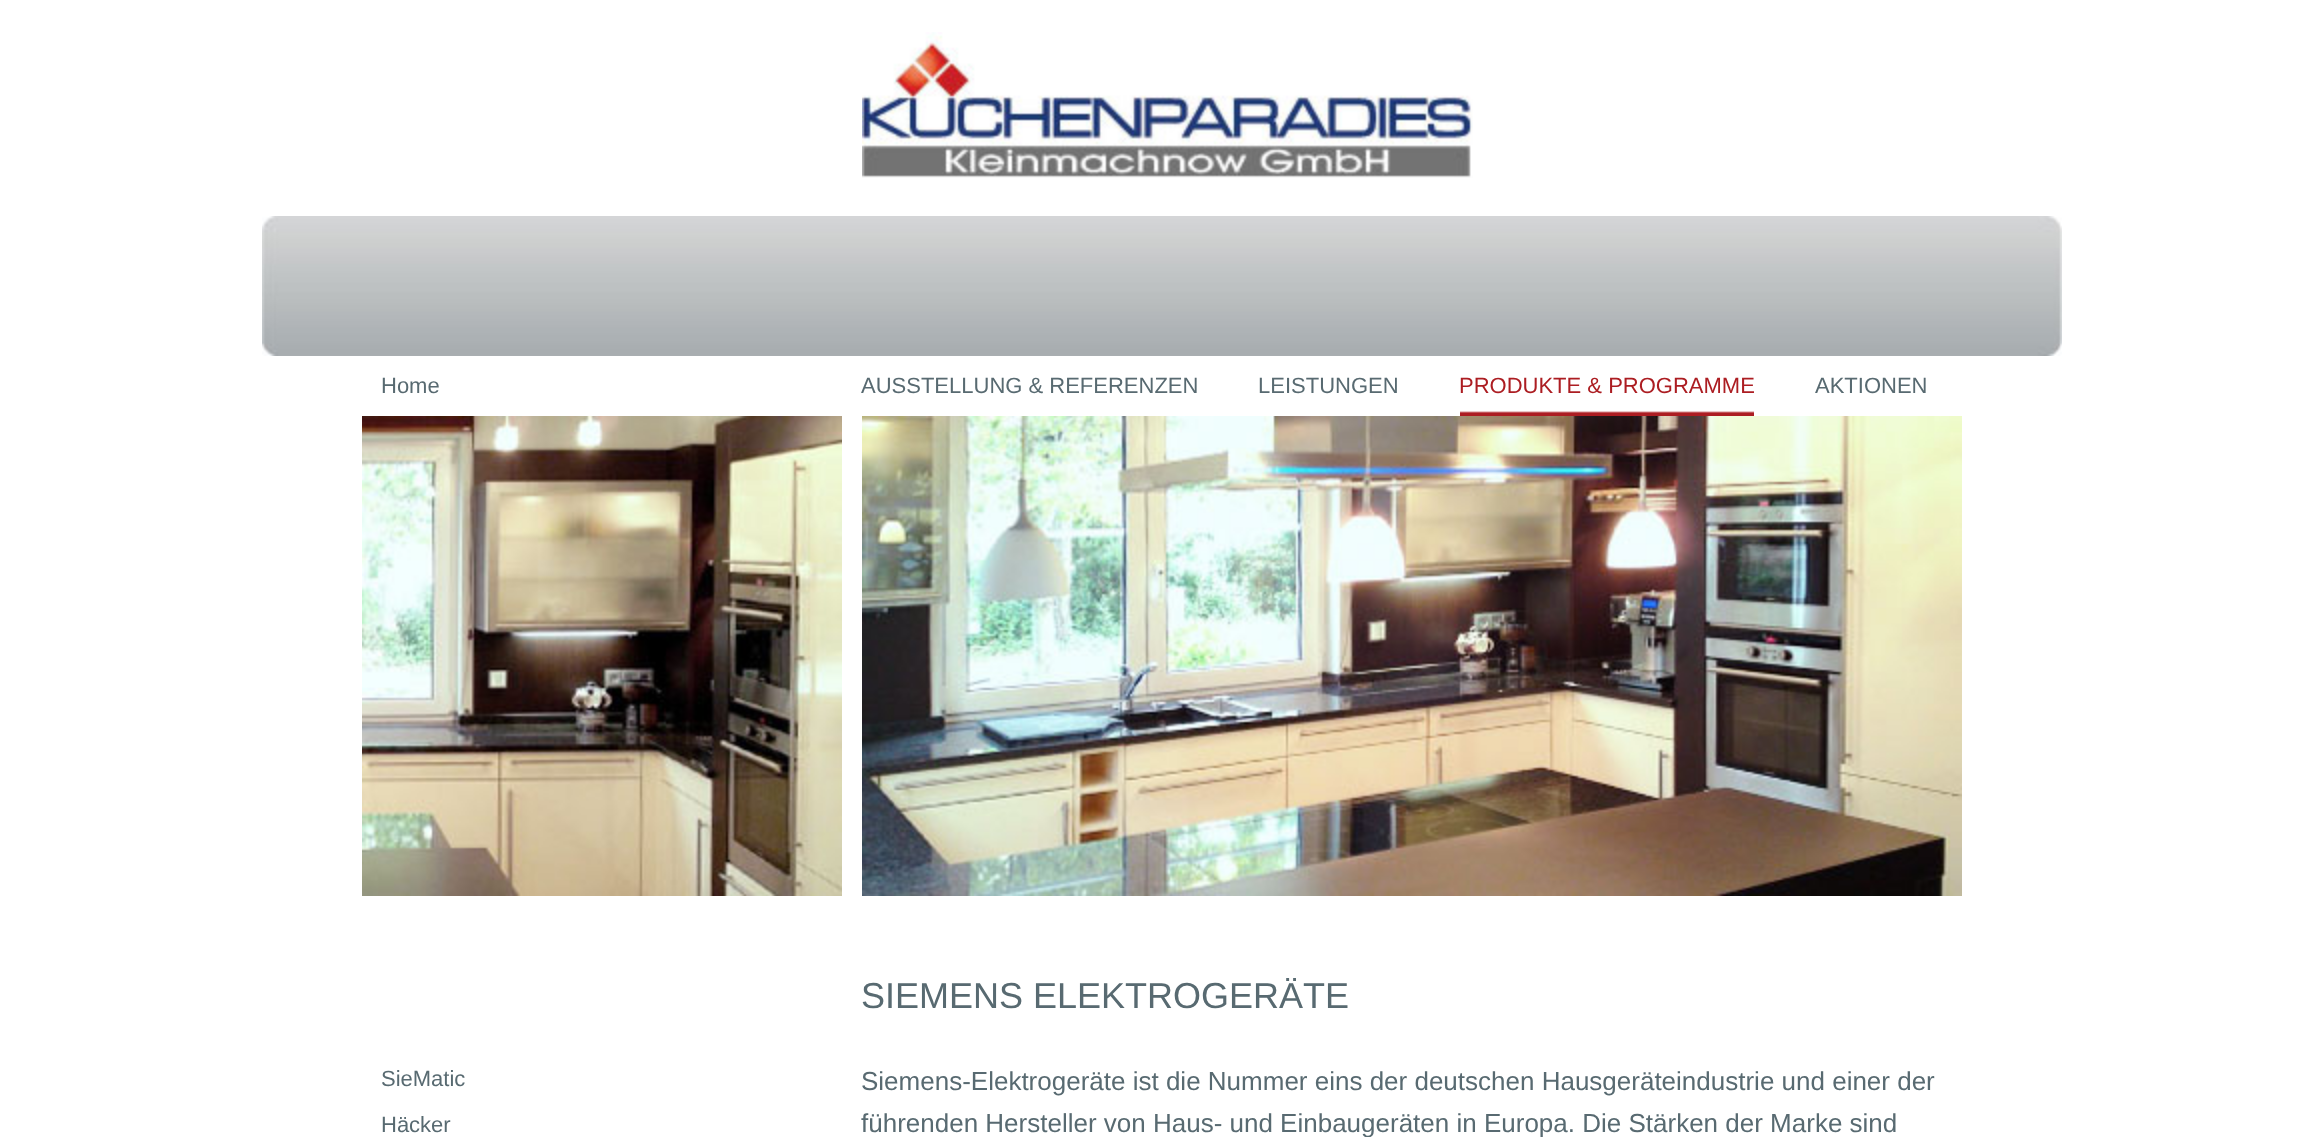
<svg xmlns="http://www.w3.org/2000/svg" xmlns:xlink="http://www.w3.org/1999/xlink" width="2321" height="1137" viewBox="0 0 2321 1137">
<style>
.cls-1{font:22px Liberation Sans;fill:#586a71}
.cls-2{font:22px Liberation Sans;fill:#ac1d22}
.cls-3{font:36px Liberation Sans;fill:#586a71}
.cls-4{font:26px Liberation Sans;fill:#586a71}
</style>
<rect width="100%" height="100%" fill="#ffffff"/>
<image xlink:href="image0.png" x="862" y="32" width="611" height="146"/>
<image xlink:href="image1.png" x="262" y="216" width="1800" height="140"/>
<image xlink:href="image2.png" x="1460" y="411" width="294" height="5"/>
<image xlink:href="image3.png" x="362" y="416" width="480" height="480"/>
<image xlink:href="image4.png" x="862" y="416" width="1100" height="480"/>
<text class="cls-1" x="381" y="393">Home</text>
<text class="cls-1" x="861" y="393">AUSSTELLUNG &amp; REFERENZEN</text>
<text class="cls-1" x="1258" y="393">LEISTUNGEN</text>
<text class="cls-2" x="1459" y="393">PRODUKTE &amp; PROGRAMME</text>
<text class="cls-1" x="1815" y="393">AKTIONEN</text>
<text class="cls-1" x="381" y="1086">SieMatic</text>
<text class="cls-1" x="381" y="1132">Häcker</text>
<text class="cls-3" x="861" y="1008">SIEMENS ELEKTROGERÄTE</text>
<text class="cls-4"><tspan x="861" y="1090">Siemens-Elektrogeräte ist die Nummer eins der deutschen Hausgeräteindustrie und einer der</tspan><tspan x="861" y="1132">führenden Hersteller von Haus- und Einbaugeräten in Europa. Die Stärken der Marke sind</tspan></text>
</svg>
